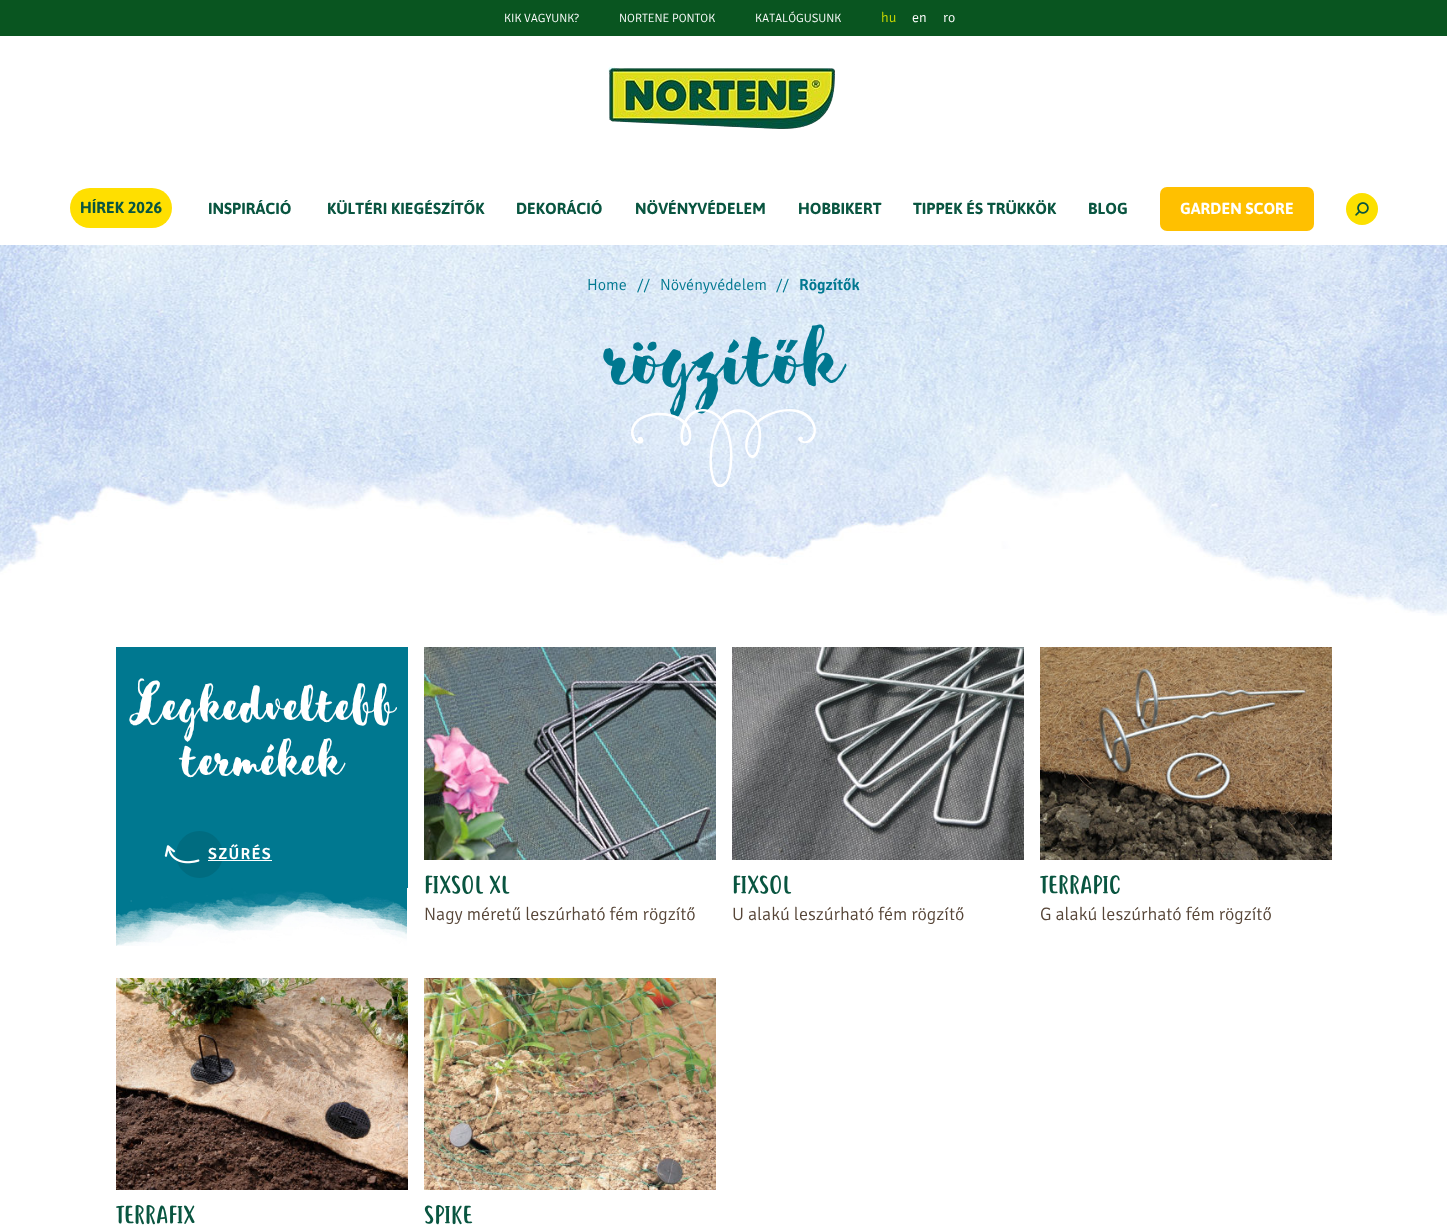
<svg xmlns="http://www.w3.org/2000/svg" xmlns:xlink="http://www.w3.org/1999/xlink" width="1447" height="1227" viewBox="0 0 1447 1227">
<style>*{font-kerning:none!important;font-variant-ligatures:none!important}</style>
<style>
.cls-1{font:300 12px Signika;fill:#ffffff}
.cls-2{font:300 14px Signika;fill:#cddb00}
.cls-3{font:300 14px Signika;fill:#ffffff}
.cls-4{font:bold 16px Asap;fill:#095540}
.cls-5{font:bold 16px Asap;fill:#ffffff}
.cls-6{font:300 16px Signika;fill:#007890}
.cls-7{font:600 16px Signika;fill:#007890}
.cls-8{font:96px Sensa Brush;fill:#007890}
.cls-9{font:60px Sensa Brush;fill:#ffffff}
.cls-10{font:600 16px Signika;letter-spacing:1.25px;fill:#ffffff}
.cls-11{font:24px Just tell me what;fill:#095540}
.cls-12{font:300 18px Signika;fill:#564537}
</style>
<rect width="100%" height="100%" fill="#ffffff"/>
<rect fill="#095520" x="0" y="0" width="1447" height="36"/>
<image xlink:href="image0.png" x="608" y="67" width="227" height="62"/>
<rect fill="#ffdf00" x="70" y="188" width="102" height="40" rx="20"/>
<rect fill="#ffc000" x="1160" y="187" width="154" height="44" rx="7"/>
<circle fill="#fce000" cx="1362" cy="209" r="16"/>
<image xlink:href="image1.png" x="1355" y="202" width="14" height="14"/>
<image xlink:href="image2.png" x="0" y="245" width="1447" height="371"/>
<rect fill="#007890" x="116" y="647" width="292" height="241"/>
<circle fill="#006c80" cx="199.5" cy="854.5" r="23.5"/>
<rect fill="#ffffff" x="208" y="860" width="64" height="1"/>
<image xlink:href="image4.png" x="164" y="845" width="36" height="19"/>
<image xlink:href="image5.png" x="116" y="888" width="291" height="58"/>
<image xlink:href="image6.png" x="424" y="647" width="292" height="213"/>
<image xlink:href="image7.png" x="732" y="647" width="292" height="213"/>
<image xlink:href="image8.png" x="1040" y="647" width="292" height="213"/>
<image xlink:href="image9.png" x="116" y="978" width="292" height="212"/>
<image xlink:href="image10.png" x="424" y="978" width="292" height="212"/>
<text class="cls-1" x="504" y="22">KIK VAGYUNK?</text>
<text class="cls-1" x="619" y="22">NORTENE PONTOK</text>
<text class="cls-1" x="755" y="22">KATALÓGUSUNK</text>
<text class="cls-2" x="881" y="22">hu</text>
<text class="cls-3" x="912" y="22">en</text>
<text class="cls-3" x="943" y="22">ro</text>
<text class="cls-4" x="80" y="213">HÍREK 2026</text>
<text class="cls-4" x="208" y="214">INSPIRÁCIÓ</text>
<text class="cls-4" x="327" y="214">KÜLTÉRI KIEGÉSZÍTŐK</text>
<text class="cls-4" x="516" y="214">DEKORÁCIÓ</text>
<text class="cls-4" x="635" y="214">NÖVÉNYVÉDELEM</text>
<text class="cls-4" x="798" y="214">HOBBIKERT</text>
<text class="cls-4" x="913" y="214">TIPPEK ÉS TRÜKKÖK</text>
<text class="cls-4" x="1088" y="214">BLOG</text>
<text class="cls-5" x="1180" y="214">GARDEN SCORE</text>
<text class="cls-6" x="587" y="290">Home</text>
<text class="cls-6" x="637" y="290">//</text>
<text class="cls-6" x="660" y="290">Növényvédelem</text>
<text class="cls-6" x="776" y="290">//</text>
<text class="cls-7" x="799" y="290">Rögzítők</text>
<text class="cls-8" x="606" y="393">rögzítők</text>
<image xlink:href="image3.png" x="631" y="409" width="185" height="78"/>
<text class="cls-9" x="127" y="726">Legkedveltebb</text>
<text class="cls-9" x="181" y="781">termékek</text>
<text class="cls-10" x="208" y="859">SZŰRÉS</text>
<text class="cls-11" x="424" y="893">FIXSOL XL</text>
<text class="cls-12" x="424" y="920">Nagy méretű leszúrható fém rögzítő</text>
<text class="cls-11" x="732" y="893">FIXSOL</text>
<text class="cls-12" x="732" y="920">U alakú leszúrható fém rögzítő</text>
<text class="cls-11" x="1040" y="893">TERRAPIC</text>
<text class="cls-12" x="1040" y="920">G alakú leszúrható fém rögzítő</text>
<text class="cls-11" x="116" y="1223">TERRAFIX</text>
<text class="cls-11" x="424" y="1223">SPIKE</text>
</svg>
